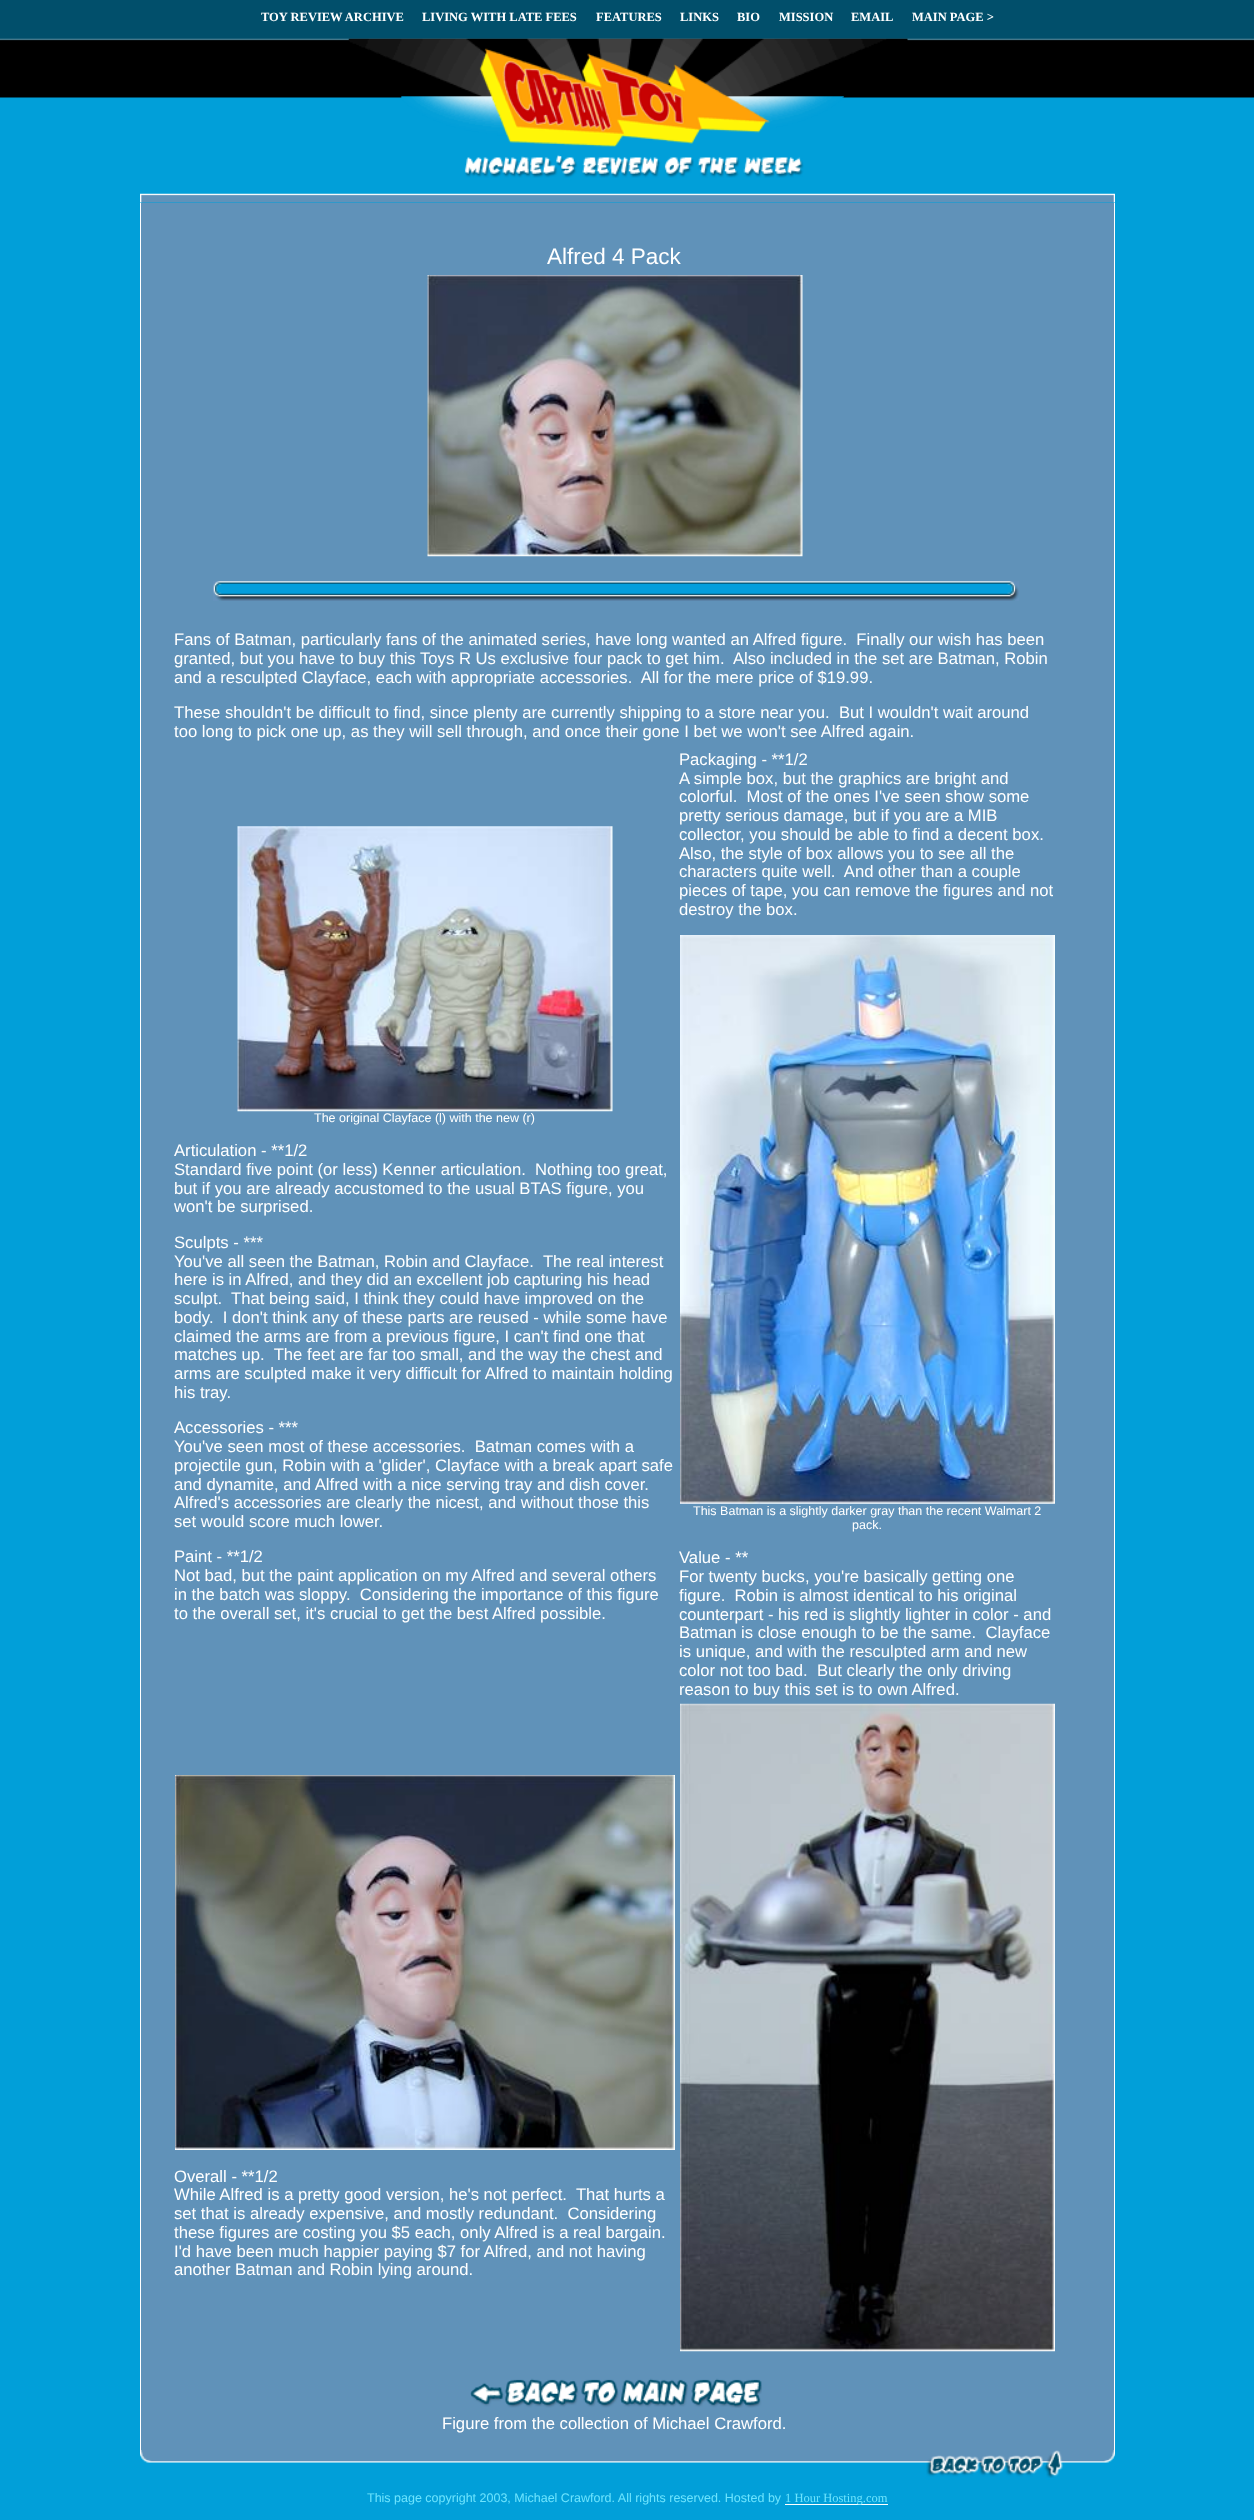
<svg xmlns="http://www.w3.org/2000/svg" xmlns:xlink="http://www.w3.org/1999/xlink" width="1254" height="2520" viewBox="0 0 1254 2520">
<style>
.cls-1{font:bold 12.5px Liberation Serif;fill:#ffffff}
.cls-2{font:22.5px Liberation Sans;fill:#ffffff}
.cls-3{font:16.67px Liberation Sans;fill:#ffffff}
.cls-4{font:12.5px Liberation Sans;fill:#ffffff}
.cls-5{font:12.5px Liberation Sans;fill:#6de4fe}
.cls-6{font:12.5px Liberation Serif;fill:#6de4fe}
</style>
<rect width="100%" height="100%" fill="#019fd9"/>
<image xlink:href="image0.png" x="0" y="0" width="1254" height="98"/>
<image xlink:href="image1.png" x="348" y="38" width="560" height="140"/>
<image xlink:href="image2.png" x="140" y="193" width="975" height="10"/>
<rect fill="#ffffff" x="140" y="203" width="1" height="2247"/>
<rect fill="#6092b9" x="141" y="203" width="973" height="2247"/>
<image xlink:href="image3.png" x="427" y="275" width="376" height="282"/>
<image xlink:href="image4.png" x="213" y="581" width="806" height="20"/>
<image xlink:href="image5.png" x="237" y="826" width="376" height="286"/>
<image xlink:href="image6.png" x="680" y="935" width="375" height="569"/>
<image xlink:href="image7.png" x="175" y="1775" width="500" height="375"/>
<image xlink:href="image8.png" x="680" y="1703" width="375" height="649"/>
<image xlink:href="image9.png" x="470" y="2378" width="292" height="30"/>
<rect fill="#ffffff" x="1114" y="203" width="1" height="2247"/>
<image xlink:href="image10.png" x="140" y="2450" width="975" height="28"/>
<rect fill="#ffffff" x="785" y="2504" width="103" height="1"/>
<text class="cls-1" x="261" y="21">TOY REVIEW ARCHIVE</text>
<text class="cls-1" x="422" y="21">LIVING WITH LATE FEES</text>
<text class="cls-1" x="596" y="21">FEATURES</text>
<text class="cls-1" x="680" y="21">LINKS</text>
<text class="cls-1" x="737" y="21">BIO</text>
<text class="cls-1" x="779" y="21">MISSION</text>
<text class="cls-1" x="851" y="21">EMAIL</text>
<text class="cls-1" x="912" y="21">MAIN PAGE &gt;</text>
<text class="cls-2" x="547" y="264">Alfred 4 Pack</text>
<text class="cls-3" xml:space="preserve"><tspan x="174" y="645">Fans of Batman, particularly fans of the animated series, have long wanted an Alfred figure.  Finally our wish has been</tspan><tspan x="174" y="664">granted, but you have to buy this Toys R Us exclusive four pack to get him.  Also included in the set are Batman, Robin</tspan><tspan x="174" y="683">and a resculpted Clayface, each with appropriate accessories.  All for the mere price of $19.99.</tspan></text>
<text class="cls-3" xml:space="preserve"><tspan x="174" y="718">These shouldn't be difficult to find, since plenty are currently shipping to a store near you.  But I wouldn't wait around</tspan><tspan x="174" y="737">too long to pick one up, as they will sell through, and once their gone I bet we won't see Alfred again.</tspan></text>
<text class="cls-4" x="314" y="1122">The original Clayface (l) with the new (r)</text>
<text class="cls-3" xml:space="preserve"><tspan x="174" y="1156">Articulation - **1/2</tspan><tspan x="174" y="1175">Standard five point (or less) Kenner articulation.  Nothing too great,</tspan><tspan x="174" y="1194">but if you are already accustomed to the usual BTAS figure, you</tspan><tspan x="174" y="1212">won't be surprised.</tspan></text>
<text class="cls-3" xml:space="preserve"><tspan x="174" y="1248">Sculpts - ***</tspan><tspan x="174" y="1267">You've all seen the Batman, Robin and Clayface.  The real interest</tspan><tspan x="174" y="1285">here is in Alfred, and they did an excellent job capturing his head</tspan><tspan x="174" y="1304">sculpt.  That being said, I think they could have improved on the</tspan><tspan x="174" y="1323">body.  I don't think any of these parts are reused - while some have</tspan><tspan x="174" y="1342">claimed the arms are from a previous figure, I can't find one that</tspan><tspan x="174" y="1360">matches up.  The feet are far too small, and the way the chest and</tspan><tspan x="174" y="1379">arms are sculpted make it very difficult for Alfred to maintain holding</tspan><tspan x="174" y="1398">his tray.</tspan></text>
<text class="cls-3" xml:space="preserve"><tspan x="174" y="1433">Accessories - ***</tspan><tspan x="174" y="1452">You've seen most of these accessories.  Batman comes with a</tspan><tspan x="174" y="1471">projectile gun, Robin with a 'glider', Clayface with a break apart safe</tspan><tspan x="174" y="1490">and dynamite, and Alfred with a nice serving tray and dish cover.</tspan><tspan x="174" y="1508">Alfred's accessories are clearly the nicest, and without those this</tspan><tspan x="174" y="1527">set would score much lower.</tspan></text>
<text class="cls-3" xml:space="preserve"><tspan x="174" y="1562">Paint - **1/2</tspan><tspan x="174" y="1581">Not bad, but the paint application on my Alfred and several others</tspan><tspan x="174" y="1600">in the batch was sloppy.  Considering the importance of this figure</tspan><tspan x="174" y="1619">to the overall set, it's crucial to get the best Alfred possible.</tspan></text>
<text class="cls-3" xml:space="preserve"><tspan x="679" y="765">Packaging - **1/2</tspan><tspan x="679" y="784">A simple box, but the graphics are bright and</tspan><tspan x="679" y="802">colorful.  Most of the ones I've seen show some</tspan><tspan x="679" y="821">pretty serious damage, but if you are a MIB</tspan><tspan x="679" y="840">collector, you should be able to find a decent box.</tspan><tspan x="679" y="859">Also, the style of box allows you to see all the</tspan><tspan x="679" y="877">characters quite well.  And other than a couple</tspan><tspan x="679" y="896">pieces of tape, you can remove the figures and not</tspan><tspan x="679" y="915">destroy the box.</tspan></text>
<text class="cls-4" x="693" y="1515">This Batman is a slightly darker gray than the recent Walmart 2</text>
<text class="cls-4" x="852" y="1529">pack.</text>
<text class="cls-3" xml:space="preserve"><tspan x="679" y="1563">Value - **</tspan><tspan x="679" y="1582">For twenty bucks, you're basically getting one</tspan><tspan x="679" y="1601">figure.  Robin is almost identical to his original</tspan><tspan x="679" y="1620">counterpart - his red is slightly lighter in color - and</tspan><tspan x="679" y="1638">Batman is close enough to be the same.  Clayface</tspan><tspan x="679" y="1657">is unique, and with the resculpted arm and new</tspan><tspan x="679" y="1676">color not too bad.  But clearly the only driving</tspan><tspan x="679" y="1695">reason to buy this set is to own Alfred.</tspan></text>
<text class="cls-3" xml:space="preserve"><tspan x="174" y="2182">Overall - **1/2</tspan><tspan x="174" y="2200">While Alfred is a pretty good version, he's not perfect.  That hurts a</tspan><tspan x="174" y="2219">set that is already expensive, and mostly redundant.  Considering</tspan><tspan x="174" y="2238">these figures are costing you $5 each, only Alfred is a real bargain.</tspan><tspan x="174" y="2257">I'd have been much happier paying $7 for Alfred, and not having</tspan><tspan x="174" y="2275">another Batman and Robin lying around.</tspan></text>
<text class="cls-3" x="442" y="2429">Figure from the collection of Michael Crawford.</text>
<text class="cls-5" x="367" y="2502">This page copyright 2003, Michael Crawford. All rights reserved. Hosted by</text>
<text class="cls-6" x="785" y="2502">1 Hour Hosting.com</text>
</svg>
